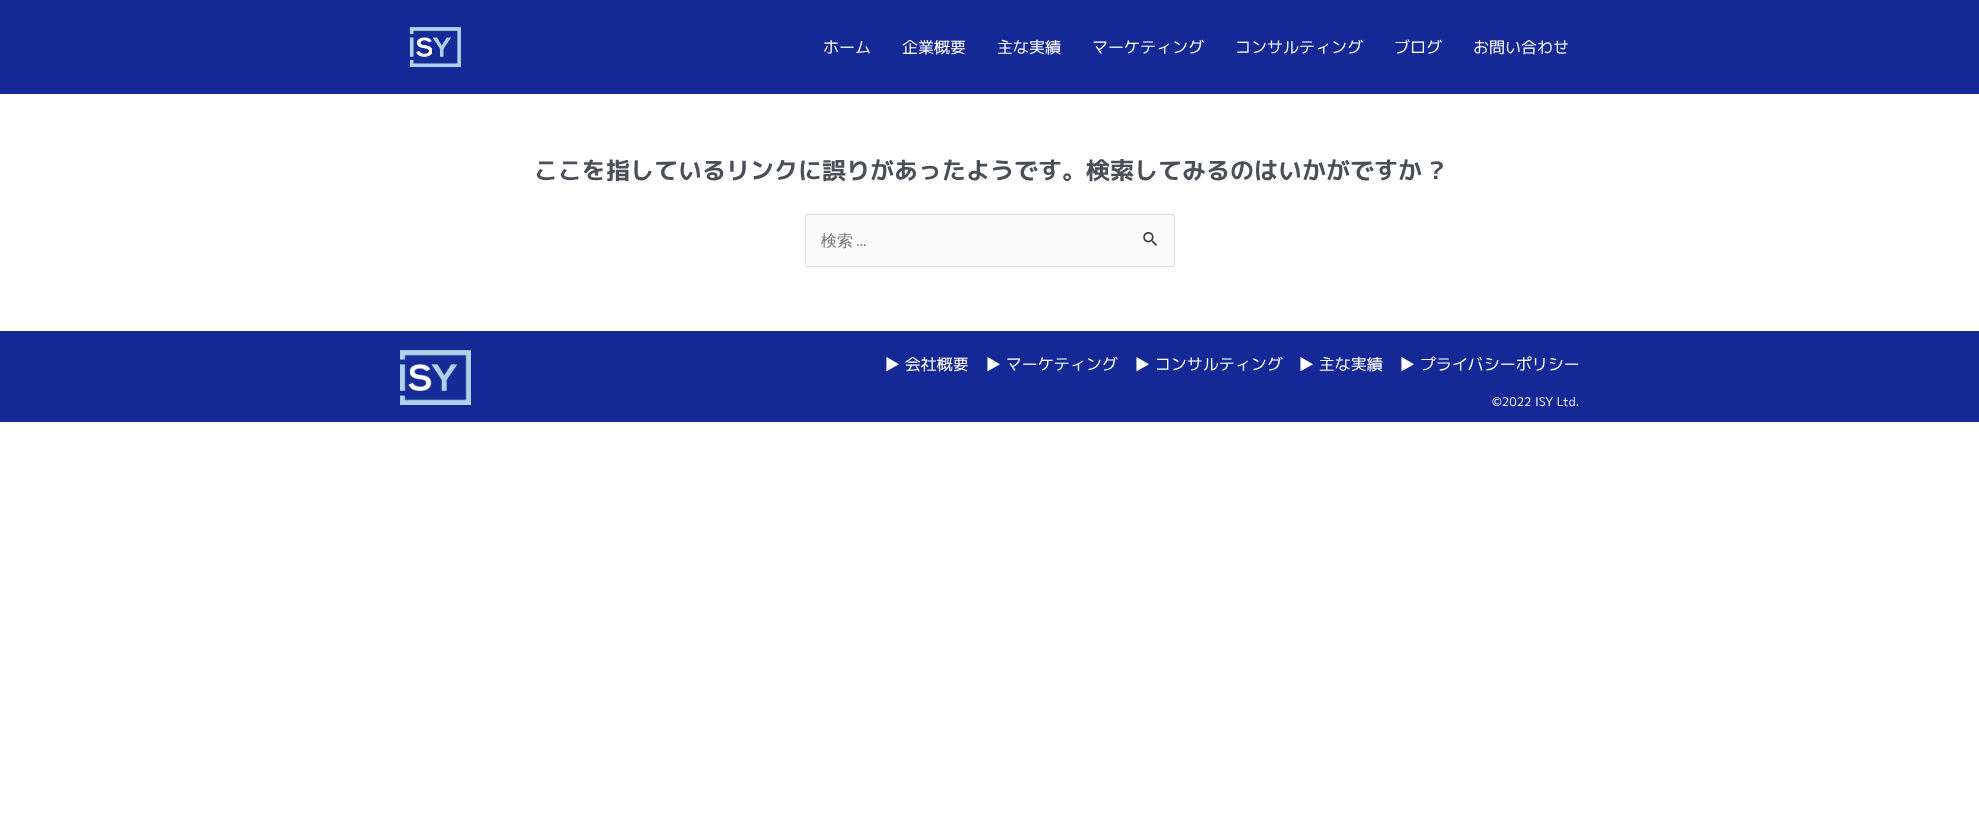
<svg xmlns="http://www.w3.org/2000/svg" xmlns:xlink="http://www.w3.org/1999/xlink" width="1979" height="819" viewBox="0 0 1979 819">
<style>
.cls-1{font:16px 'M PLUS 1p';fill:#ffffff}
.cls-2{font:bold 24px 'M PLUS 1p';fill:#4b4f58}
.cls-3{font:500 16px WenQuanYi Zen Hei;fill:#757575}
.cls-4{font:16px Roboto;fill:#757575}
.cls-5{font:12px 'M PLUS 1p';fill:#ffffff}
</style>
<rect width="100%" height="100%" fill="#ffffff"/>
<rect fill="#142995" x="0" y="0" width="1979" height="94"/>
<image xlink:href="image0.png" x="409" y="27" width="52" height="40"/>
<rect fill="#fafafa" stroke="#dddddd" x="805.5" y="214.5" width="369" height="52" rx="1.5"/>
<image xlink:href="image1.png" x="1143" y="232" width="15" height="14"/>
<rect fill="#142995" x="0" y="331" width="1979" height="91"/>
<image xlink:href="image2.png" x="400" y="350" width="71" height="55"/>
<text class="cls-1" x="823" y="53">ホーム</text>
<text class="cls-1" x="902" y="53">企業概要</text>
<text class="cls-1" x="997" y="53">主な実績</text>
<text class="cls-1" x="1092" y="53">マーケティング</text>
<text class="cls-1" x="1235" y="53">コンサルティング</text>
<text class="cls-1" x="1394" y="53">ブログ</text>
<text class="cls-1" x="1473" y="53">お問い合わせ</text>
<text class="cls-2" x="534" y="179">ここを指しているリンクに誤りがあったようです。検索してみるのはいかがですか ?</text>
<text class="cls-3" x="821" y="246">検索</text>
<text class="cls-4" x="856" y="246">…</text>
<text class="cls-1" x="884" y="370">▶ 会社概要</text>
<text class="cls-1" x="985" y="370">▶ マーケティング</text>
<text class="cls-1" x="1134" y="370">▶ コンサルティング</text>
<text class="cls-1" x="1298" y="370">▶ 主な実績</text>
<text class="cls-1" x="1399" y="370">▶ プライバシーポリシー</text>
<text class="cls-5" x="1492" y="406">©2022 ISY Ltd.</text>
</svg>
